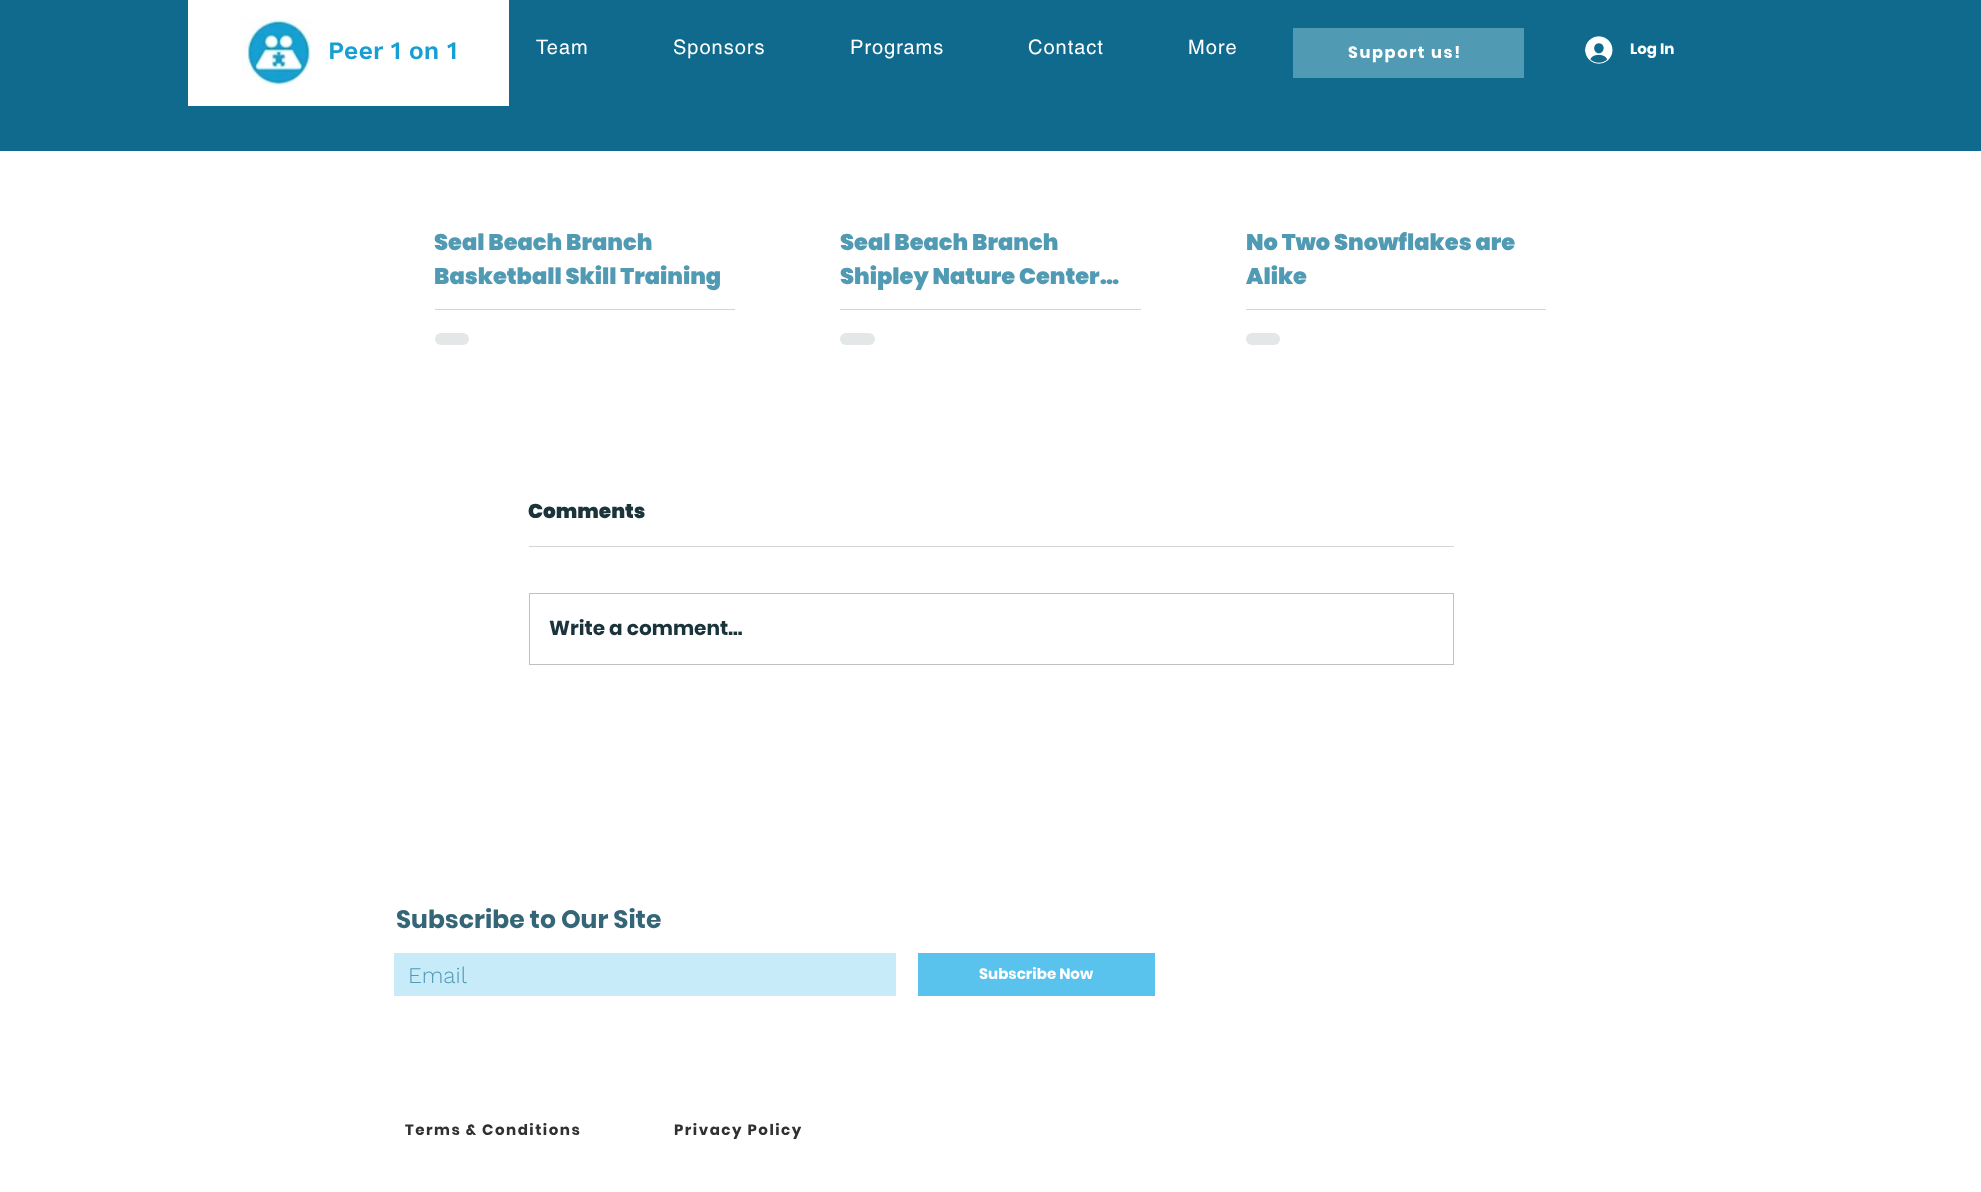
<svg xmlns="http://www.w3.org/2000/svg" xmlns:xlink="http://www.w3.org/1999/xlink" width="1981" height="1192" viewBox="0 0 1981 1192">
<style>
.cls-1{font:20px helvetica;letter-spacing:1px;fill:#ffffff}
.cls-2{font:600 25px Work Sans;fill:#179fd3}
.cls-3{font:bold 16.25px Poppins;letter-spacing:1.6px;fill:#ffffff}
.cls-4{font:bold 15px Poppins;fill:#ffffff}
.cls-5{font:900 22.5px Poppins;fill:#509ab3}
.cls-6{font:900 20px Poppins;fill:#1b333b}
.cls-7{font:bold 20px Poppins;fill:#1b333b}
.cls-8{font:bold 25px Poppins;fill:#356677}
.cls-9{font:300 22.5px Work Sans;fill:#509ab3}
.cls-10{font:bold 15px Poppins;letter-spacing:1.5px;fill:#303030}
</style>
<rect width="100%" height="100%" fill="#ffffff"/>
<rect fill="#0f6a8d" x="0" y="0" width="1981" height="151"/>
<rect fill="#ffffff" x="188" y="0" width="321" height="106"/>
<image xlink:href="image0.png" x="241" y="18" width="71" height="67"/>
<rect fill="#509ab3" x="1293" y="28" width="231" height="50"/>
<image xlink:href="image1.png" x="1585" y="36" width="28" height="28"/>
<rect fill="#d1d6d8" x="435" y="309" width="300" height="1"/>
<rect fill="#e4e7e7" x="435" y="333" width="34" height="12" rx="6"/>
<rect fill="#d1d6d8" x="840" y="309" width="301" height="1"/>
<rect fill="#e4e7e7" x="840" y="333" width="35" height="12" rx="6"/>
<rect fill="#d1d6d8" x="1246" y="309" width="300" height="1"/>
<rect fill="#e4e7e7" x="1246" y="333" width="34" height="12" rx="6"/>
<rect fill="#d1d6d8" x="529" y="546" width="925" height="1"/>
<rect fill="none" stroke="#c1c1c1" x="529.5" y="593.5" width="924" height="71"/>
<rect fill="#c8ebf9" x="394" y="953" width="502" height="43"/>
<rect fill="#5ac3ed" x="918" y="953" width="237" height="43"/>
<text class="cls-1" x="536" y="54">Team</text>
<text class="cls-1" x="673" y="54">Sponsors</text>
<text class="cls-1" x="850" y="54">Programs</text>
<text class="cls-1" x="1028" y="54">Contact</text>
<text class="cls-1" x="1188" y="54">More</text>
<text class="cls-2" x="328" y="59">Peer 1 on 1</text>
<text class="cls-3" x="1348" y="58">Support us!</text>
<text class="cls-4" x="1630" y="54">Log In</text>
<text class="cls-5"><tspan x="434" y="250">Seal Beach Branch</tspan><tspan x="434" y="284">Basketball Skill Training</tspan></text>
<text class="cls-5"><tspan x="840" y="250">Seal Beach Branch</tspan><tspan x="840" y="284">Shipley Nature Center…</tspan></text>
<text class="cls-5"><tspan x="1246" y="250">No Two Snowflakes are</tspan><tspan x="1246" y="284">Alike</tspan></text>
<text class="cls-6" x="528" y="518">Comments</text>
<text class="cls-7" x="549" y="635">Write a comment...</text>
<text class="cls-8" x="396" y="928">Subscribe to Our Site</text>
<text class="cls-9" x="408" y="983">Email</text>
<text class="cls-4" x="979" y="979">Subscribe Now</text>
<text class="cls-10" x="405" y="1135">Terms &amp; Conditions</text>
<text class="cls-10" x="674" y="1135">Privacy Policy</text>
</svg>
